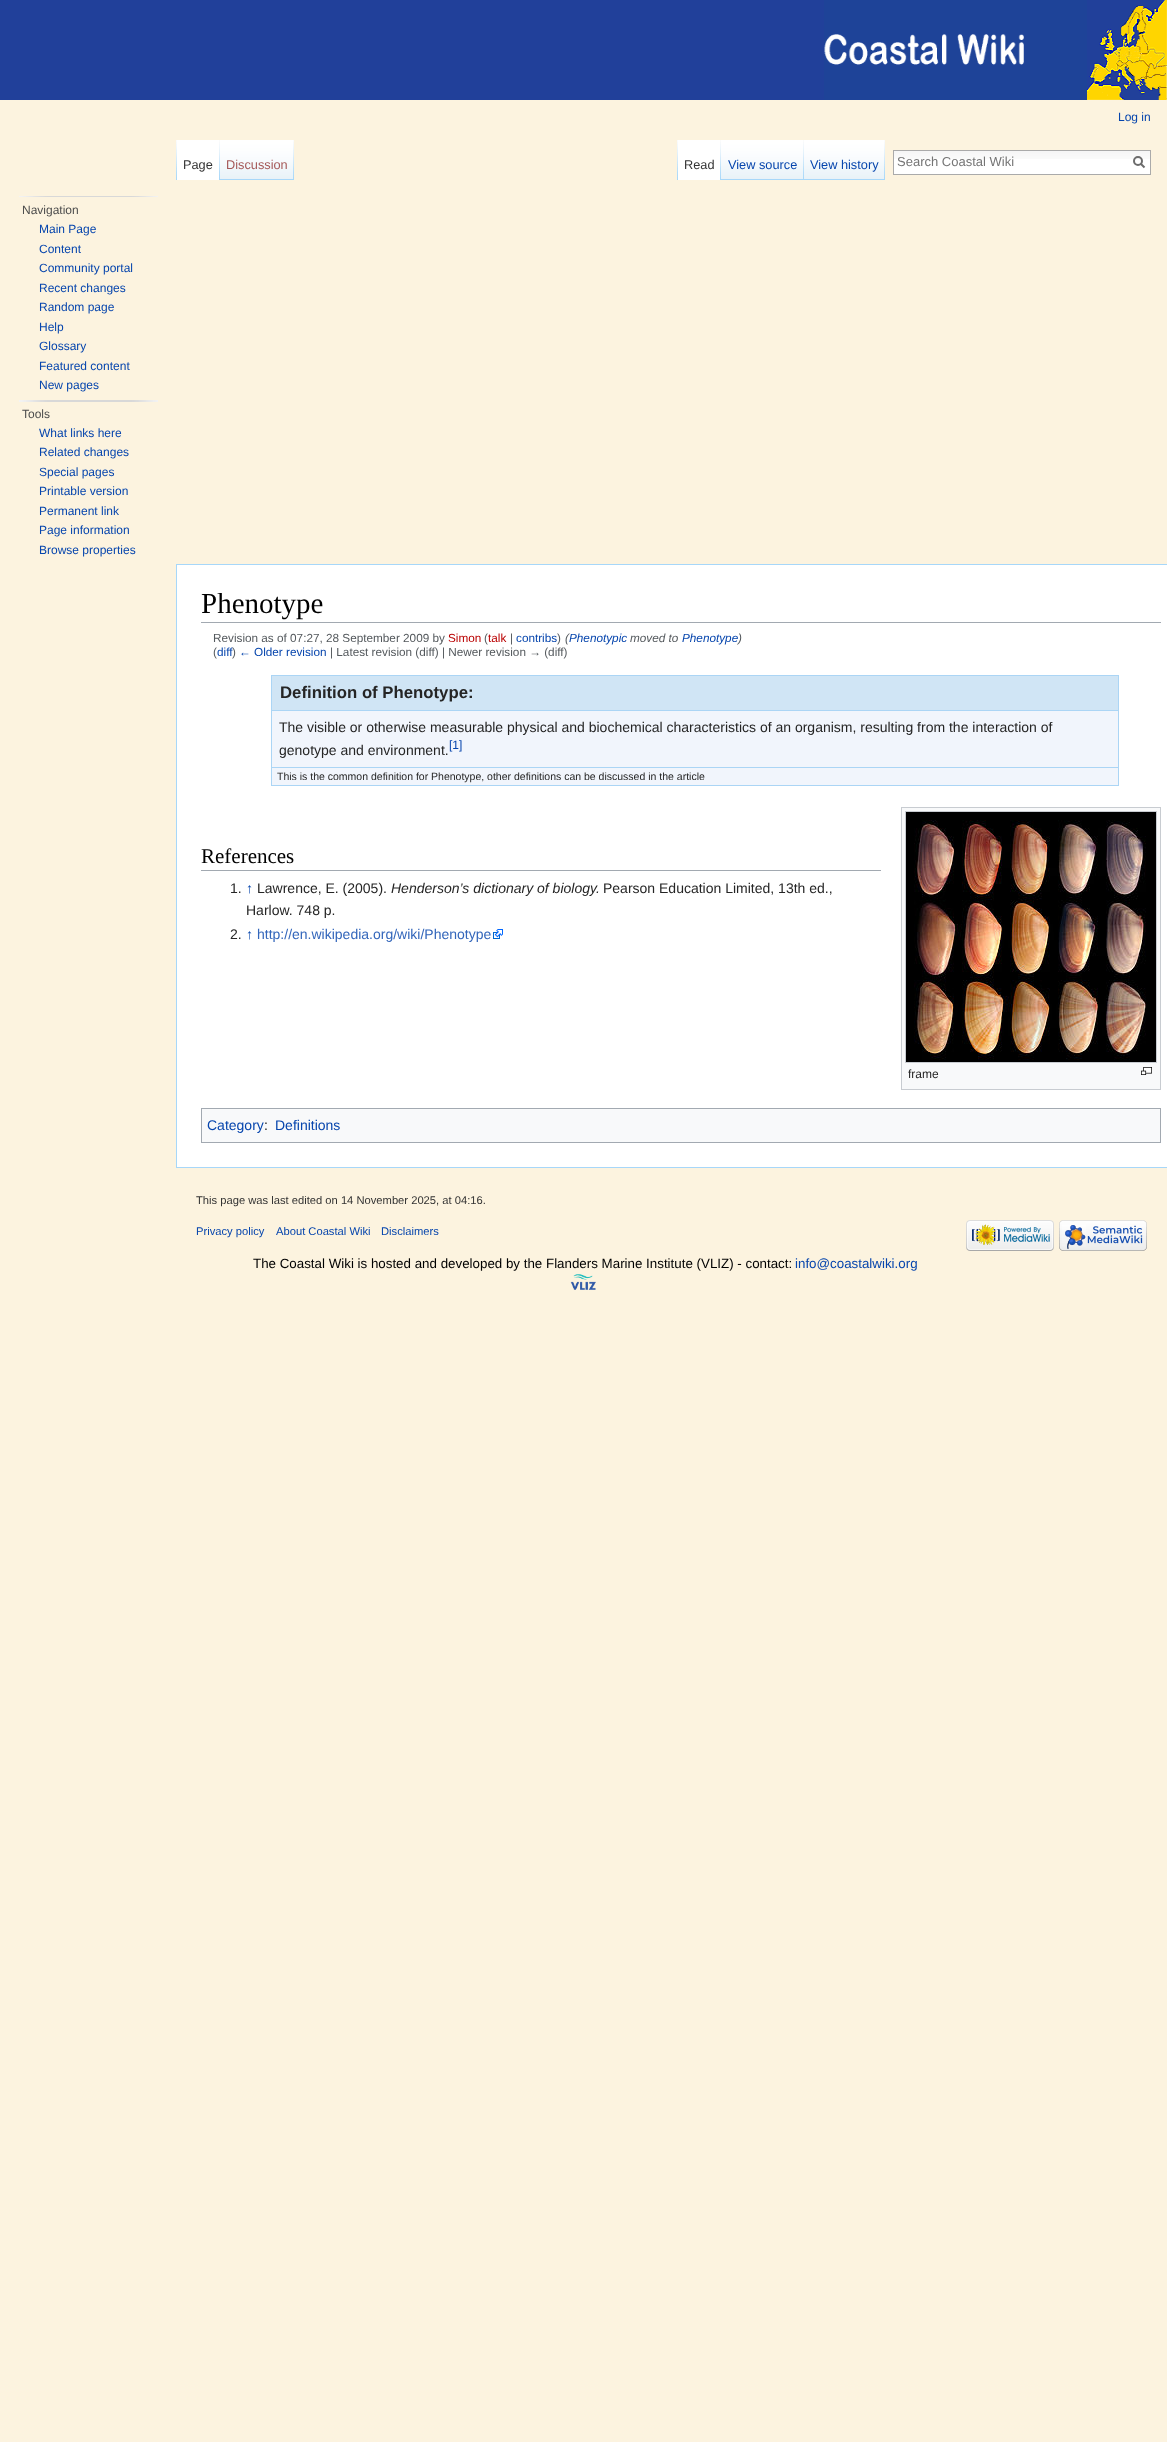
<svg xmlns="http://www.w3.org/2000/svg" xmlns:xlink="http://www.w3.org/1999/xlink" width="1167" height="2442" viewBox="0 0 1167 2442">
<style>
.cls-1{font:12px Liberation Sans;fill:#0645ad}
.cls-2{font:12.75px Liberation Sans;fill:#333333}
.cls-3{font:12.75px Liberation Sans;fill:#a55858}
.cls-4{font:12.75px Liberation Sans;fill:#0645ad}
.cls-5{font:13px Liberation Sans;fill:#757575}
.cls-6{font:12px Liberation Sans;fill:#4d4d4d}
.cls-7{font:29px Liberation Serif;fill:#000000}
.cls-8{font:11.75px Liberation Sans;fill:#54595d}
.cls-9{font:11.75px Liberation Sans;fill:#ba0000}
.cls-10{font:11.75px Liberation Sans;fill:#0645ad}
.cls-11{font:italic 11.75px Liberation Sans;fill:#54595d}
.cls-12{font:italic 11.75px Liberation Sans;fill:#0645ad}
.cls-13{font:bold 16.75px Liberation Sans;fill:#252525}
.cls-14{font:14px Liberation Sans;fill:#252525}
.cls-15{font:10.5px Liberation Sans;fill:#252525}
.cls-16{font:21px Liberation Serif;fill:#000000}
.cls-17{font:14px Liberation Sans;fill:#0645ad}
.cls-18{font:italic 14px Liberation Sans;fill:#252525}
.cls-19{font:14px Liberation Sans;fill:#3366bb}
.cls-20{font:12px Liberation Sans;fill:#252525}
.cls-21{font:11.2px Liberation Sans;fill:#333333}
.cls-22{font:11.2px Liberation Sans;fill:#0645ad}
.cls-23{font:13.35px Liberation Sans;fill:#000000}
.cls-24{font:13.35px Liberation Sans;fill:#0645ad}
</style>
<rect width="100%" height="100%" fill="#fcf3df"/>
<rect fill="#21409a" x="0" y="0" width="824" height="100"/>
<image xlink:href="image0.png" x="824" y="0" width="343" height="100"/>
<image xlink:href="image1.png" x="176" y="140" width="1" height="40"/>
<rect fill="#ffffff" x="177" y="140" width="42" height="40"/>
<image xlink:href="image2.png" x="219" y="140" width="1" height="40"/>
<image xlink:href="image3.png" x="220" y="140" width="74" height="40"/>
<image xlink:href="image4.png" x="293" y="140" width="1" height="39"/>
<image xlink:href="image1.png" x="677" y="140" width="1" height="40"/>
<rect fill="#ffffff" x="678" y="140" width="42" height="40"/>
<image xlink:href="image2.png" x="720" y="140" width="1" height="40"/>
<image xlink:href="image5.png" x="721" y="140" width="83" height="40"/>
<image xlink:href="image4.png" x="803" y="140" width="1" height="39"/>
<image xlink:href="image6.png" x="804" y="140" width="81" height="40"/>
<image xlink:href="image4.png" x="884" y="140" width="1" height="39"/>
<rect fill="#ffffff" x="894" y="159" width="256" height="15"/>
<image xlink:href="image7.png" x="894" y="151" width="256" height="8"/>
<rect fill="none" stroke="#aaaaaa" x="893.5" y="150.5" width="257" height="24"/>
<path fill="none" stroke="#6c6c6c" stroke-width="2" d="M1144.5 167.5L1140.5 163.5"/>
<circle fill="none" stroke="#6c6c6c" stroke-width="2" cx="1138" cy="161" r="4"/>
<image xlink:href="image8.png" x="19" y="196" width="139" height="1"/>
<image xlink:href="image9.png" x="19" y="400" width="139" height="2"/>
<rect fill="#ffffff" x="177" y="565" width="990" height="602"/>
<rect fill="#a7d7f9" x="176" y="564" width="991" height="1"/>
<rect fill="#a7d7f9" x="176" y="1167" width="991" height="1"/>
<rect fill="#a7d7f9" x="176" y="564" width="1" height="604"/>
<rect fill="#a2a9b1" x="201" y="622" width="960" height="1"/>
<rect fill="#f1f5fc" x="272" y="711" width="846" height="74"/>
<rect fill="none" stroke="#abd5f5" x="271.5" y="675.5" width="847" height="110"/>
<rect fill="#d0e5f5" x="272" y="676" width="846" height="34"/>
<rect fill="#abd5f5" x="272" y="710" width="846" height="1"/>
<rect fill="#abd5f5" x="272" y="767" width="846" height="1"/>
<rect fill="#a2a9b1" x="201" y="870" width="680" height="1"/>
<image xlink:href="image10.png" x="493" y="929" width="10" height="10"/>
<rect fill="#f8f9fa" stroke="#c8ccd1" x="901.5" y="807.5" width="259" height="282"/>
<rect fill="none" stroke="#c8ccd1" x="905.5" y="811.5" width="251" height="251"/>
<image xlink:href="image11.png" x="906" y="812" width="250" height="250"/>
<image xlink:href="image12.png" x="1141" y="1067" width="11" height="8"/>
<rect fill="#f8f9fa" stroke="#a2a9b1" x="201.5" y="1108.5" width="959" height="34"/>
<image xlink:href="image13.png" x="966" y="1220" width="88" height="31"/>
<image xlink:href="image14.png" x="1059" y="1220" width="88" height="31"/>
<image xlink:href="image15.png" x="570" y="1274" width="26" height="16"/>
<text class="cls-1" x="1118" y="121">Log in</text>
<text class="cls-2" x="183" y="169">Page</text>
<text class="cls-3" x="226" y="169">Discussion</text>
<text class="cls-2" x="684" y="169">Read</text>
<text class="cls-4" x="728" y="169">View source</text>
<text class="cls-4" x="810" y="169">View history</text>
<text class="cls-5" x="897" y="166">Search Coastal Wiki</text>
<text class="cls-6" x="22" y="214">Navigation</text>
<text class="cls-1"><tspan x="39" y="233">Main Page</tspan><tspan x="39" y="253">Content</tspan><tspan x="39" y="272">Community portal</tspan><tspan x="39" y="292">Recent changes</tspan><tspan x="39" y="311">Random page</tspan><tspan x="39" y="331">Help</tspan><tspan x="39" y="350">Glossary</tspan><tspan x="39" y="370">Featured content</tspan><tspan x="39" y="389">New pages</tspan></text>
<text class="cls-6" x="22" y="418">Tools</text>
<text class="cls-1"><tspan x="39" y="437">What links here</tspan><tspan x="39" y="456">Related changes</tspan><tspan x="39" y="476">Special pages</tspan><tspan x="39" y="495">Printable version</tspan><tspan x="39" y="515">Permanent link</tspan><tspan x="39" y="534">Page information</tspan><tspan x="39" y="554">Browse properties</tspan></text>
<text class="cls-7" x="201" y="613">Phenotype</text>
<text class="cls-8" x="213" y="642">Revision as of 07:27, 28 September 2009 by</text>
<text class="cls-9" x="448" y="642">Simon</text>
<text class="cls-8" x="484" y="642">(</text>
<text class="cls-9" x="488" y="642">talk</text>
<text class="cls-8" x="510" y="642">|</text>
<text class="cls-10" x="516" y="642">contribs</text>
<text class="cls-8" x="557" y="642">)</text>
<text class="cls-11" x="565" y="642">(</text>
<text class="cls-12" x="569" y="642">Phenotypic</text>
<text class="cls-11" x="630" y="642">moved to</text>
<text class="cls-12" x="682" y="642">Phenotype</text>
<text class="cls-11" x="738" y="642">)</text>
<text class="cls-8" x="213" y="656">(</text>
<text class="cls-10" x="217" y="656">diff</text>
<text class="cls-8" x="232" y="656">)</text>
<text class="cls-10" x="239" y="656">← Older revision</text>
<text class="cls-8" x="330" y="656">| Latest revision (diff) | Newer revision → (diff)</text>
<text class="cls-13" x="280" y="698">Definition of Phenotype:</text>
<text class="cls-14"><tspan x="279" y="732">The visible or otherwise measurable physical and biochemical characteristics of an organism, resulting from the interaction of</tspan><tspan x="279" y="755">genotype and environment.</tspan></text>
<text class="cls-1" x="449" y="749">[1]</text>
<text class="cls-15" x="277" y="780">This is the common definition for Phenotype, other definitions can be discussed in the article</text>
<text class="cls-16" x="201" y="863">References</text>
<text class="cls-14" x="230" y="893">1.</text>
<text class="cls-17" x="246" y="893">↑</text>
<text class="cls-14" x="257" y="893">Lawrence, E. (2005).</text>
<text class="cls-18" x="391" y="893">Henderson’s dictionary of biology.</text>
<text class="cls-14" x="603" y="893">Pearson Education Limited, 13th ed.,</text>
<text class="cls-14" x="246" y="915">Harlow. 748 p.</text>
<text class="cls-14" x="230" y="939">2.</text>
<text class="cls-17" x="246" y="939">↑</text>
<text class="cls-19" x="257" y="939">http://en.wikipedia.org/wiki/Phenotype</text>
<text class="cls-20" x="908" y="1078">frame</text>
<text class="cls-17" x="207" y="1130">Category</text>
<text class="cls-14" x="264" y="1130">:</text>
<text class="cls-17" x="275" y="1130">Definitions</text>
<text class="cls-21" x="196" y="1204">This page was last edited on 14 November 2025, at 04:16.</text>
<text class="cls-22" x="196" y="1235">Privacy policy</text>
<text class="cls-22" x="276" y="1235">About Coastal Wiki</text>
<text class="cls-22" x="381" y="1235">Disclaimers</text>
<text class="cls-23" x="253" y="1268">The Coastal Wiki is hosted and developed by the Flanders Marine Institute (VLIZ) - contact:</text>
<text class="cls-24" x="795" y="1268">info@coastalwiki.org</text>
</svg>
